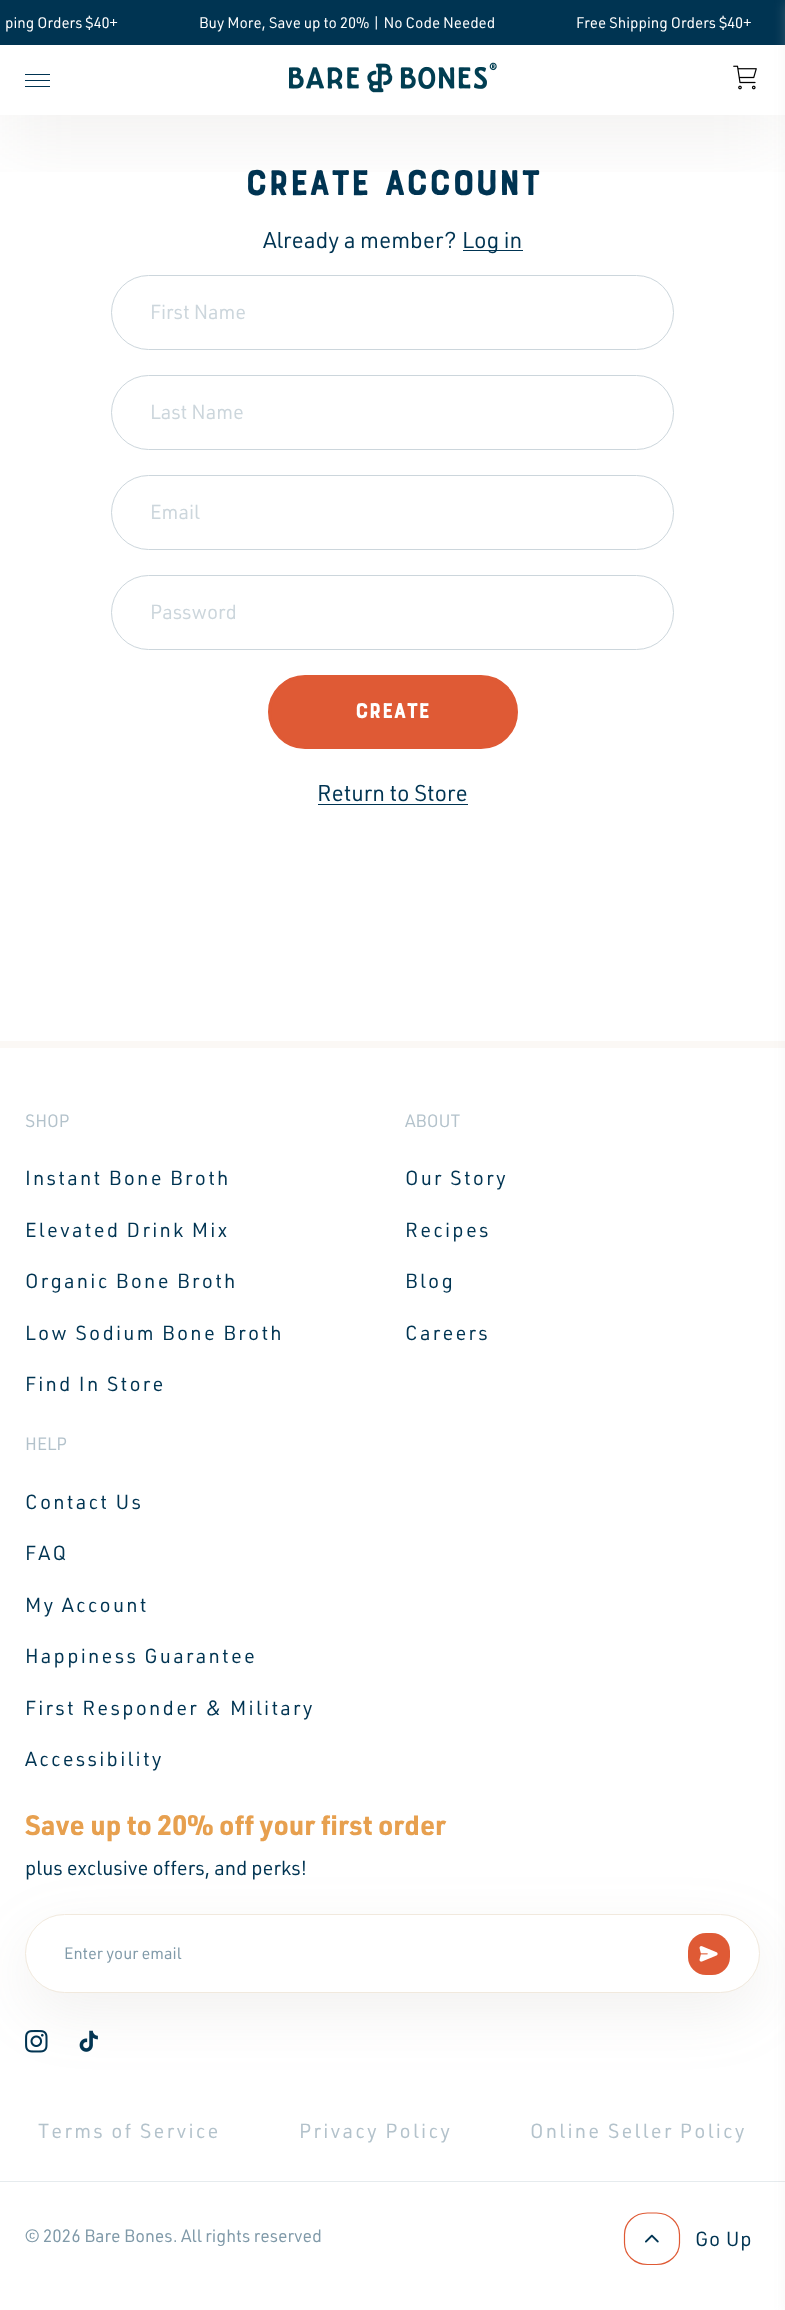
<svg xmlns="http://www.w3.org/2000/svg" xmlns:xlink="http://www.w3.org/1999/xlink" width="785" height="2310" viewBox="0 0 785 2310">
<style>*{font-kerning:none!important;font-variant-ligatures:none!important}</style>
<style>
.cls-1{font:15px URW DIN;fill:#ffffff}
.cls-2{font:37.5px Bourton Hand;fill:#003452}
.cls-3{font:22.5px URW DIN;fill:#003452}
.cls-4{font:20px URW DIN;fill:#ccd6dc}
.cls-5{font:22.5px Bourton Hand;fill:#ffffff}
.cls-6{font:17.5px URW DIN;fill:#b3c2cb}
.cls-7{font:20px URW DIN;letter-spacing:2.25px;fill:#003452}
.cls-8{font:bold 27.5px URW DIN;fill:#e7a04f}
.cls-9{font:20px URW DIN;fill:#003452}
.cls-10{font:16.25px URW DIN;fill:#809aa9}
.cls-11{font:20px URW DIN;letter-spacing:2.25px;fill:#b3c2cb}
.cls-12{font:17.5px URW DIN;fill:#809aa9}
.cls-13{font:20px URW DIN;letter-spacing:0.75px;fill:#003452}
</style>
<defs>
<clipPath id="clip1"><rect x="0" y="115" width="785" height="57"/></clipPath>
</defs>
<rect width="100%" height="100%" fill="#ffffff"/>
<rect fill="#003452" x="463" y="250" width="60" height="1"/>
<g clip-path="url(#clip1)">
<rect fill="#80776c" fill-opacity="0.1" filter="blur(37.5px)" x="0" y="25" width="785" height="115"/>
</g>
<rect fill="#003452" x="0" y="0" width="785" height="45"/>
<rect fill="#003452" x="25" y="74" width="25" height="1"/>
<rect fill="#003452" x="25" y="80" width="25" height="1"/>
<rect fill="#003452" x="25" y="86" width="25" height="1"/>
<image xlink:href="image0.png" x="289" y="62" width="208" height="31"/>
<image xlink:href="image1.png" x="733" y="65" width="24" height="25"/>
<rect fill="#fbf8f5" x="0" y="1041" width="785" height="7"/>
<rect fill="#e6ebee" x="0" y="2181" width="785" height="1"/>
<rect fill="#d6d6d6" fill-opacity="0.24" filter="blur(6px)" x="785" y="3" width="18" height="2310"/>
<rect fill="none" stroke="#ccd6dc" x="111.5" y="275.5" width="562" height="74" rx="37"/>
<rect fill="none" stroke="#ccd6dc" x="111.5" y="375.5" width="562" height="74" rx="37"/>
<rect fill="none" stroke="#ccd6dc" x="111.5" y="475.5" width="562" height="74" rx="37"/>
<rect fill="none" stroke="#ccd6dc" x="111.5" y="575.5" width="562" height="74" rx="37"/>
<rect fill="#df5a35" stroke="#df5a35" stroke-width="3" x="269.5" y="676.5" width="247" height="71" rx="35.5"/>
<rect fill="#003452" x="318" y="804" width="150" height="1"/>
<image xlink:href="image3.png" x="25" y="2030" width="23" height="23"/>
<image xlink:href="image4.png" x="79" y="2030" width="19" height="22"/>
<rect fill="#80776c" fill-opacity="0.1" filter="blur(30px)" x="25" y="1934" width="735" height="79" rx="39.5"/>
<rect fill="#ffffff" stroke="#f1e9dd" x="25.5" y="1914.5" width="734" height="78" rx="39"/>
<rect fill="#df5a35" x="688" y="1933" width="42" height="42" rx="18"/>
<image xlink:href="image2.png" x="699" y="1946" width="19" height="16"/>
<path fill="none" stroke="#df5a35" stroke-width="1.2" d="M647.5 2213H656.5C669 2213 679.5 2222.5 679.5 2234.5V2243C679.5 2255 669 2264.5 656.5 2264.5H647.5C634.5 2264.5 624.5 2255 624.5 2243V2234.5C624.5 2222.5 634.5 2213 647.5 2213Z"/>
<image xlink:href="image5.png" x="645" y="2234" width="14" height="9"/>
<text class="cls-1" x="5" y="28">ping Orders $40+</text>
<text class="cls-1" x="199" y="28">Buy More, Save up to 20% | No Code Needed</text>
<text class="cls-1" x="576" y="28">Free Shipping Orders $40+</text>
<text class="cls-2" x="245" y="195">Create Account</text>
<text class="cls-3" x="263" y="248">Already a member?</text>
<text class="cls-3" x="462" y="248">Log in</text>
<text class="cls-4" x="150" y="319">First Name</text>
<text class="cls-4" x="150" y="419">Last Name</text>
<text class="cls-4" x="150" y="519">Email</text>
<text class="cls-4" x="150" y="619">Password</text>
<text class="cls-5" x="355" y="718">CREATE</text>
<text class="cls-3" x="317" y="801">Return to Store</text>
<text class="cls-6" x="25" y="1127">SHOP</text>
<text class="cls-7" x="25" y="1185">Instant Bone Broth</text>
<text class="cls-7" x="25" y="1237">Elevated Drink Mix</text>
<text class="cls-7" x="25" y="1288">Organic Bone Broth</text>
<text class="cls-7" x="25" y="1340">Low Sodium Bone Broth</text>
<text class="cls-7" x="25" y="1391">Find In Store</text>
<text class="cls-6" x="405" y="1127">ABOUT</text>
<text class="cls-7" x="405" y="1185">Our Story</text>
<text class="cls-7" x="405" y="1237">Recipes</text>
<text class="cls-7" x="405" y="1288">Blog</text>
<text class="cls-7" x="405" y="1340">Careers</text>
<text class="cls-6" x="25" y="1450">HELP</text>
<text class="cls-7" x="25" y="1509">Contact Us</text>
<text class="cls-7" x="25" y="1560">FAQ</text>
<text class="cls-7" x="25" y="1612">My Account</text>
<text class="cls-7" x="25" y="1663">Happiness Guarantee</text>
<text class="cls-7" x="25" y="1715">First Responder &amp; Military</text>
<text class="cls-7" x="25" y="1766">Accessibility</text>
<text class="cls-8" x="25" y="1835">Save up to 20% off your first order</text>
<text class="cls-9" x="25" y="1875">plus exclusive offers, and perks!</text>
<text class="cls-10" x="64" y="1959">Enter your email</text>
<text class="cls-11" x="38" y="2138">Terms of Service</text>
<text class="cls-11" x="299" y="2138">Privacy Policy</text>
<text class="cls-11" x="530" y="2138">Online Seller Policy</text>
<text class="cls-12" x="25" y="2242">© 2026 Bare Bones. All rights reserved</text>
<text class="cls-13" x="695" y="2246">Go Up</text>
</svg>
